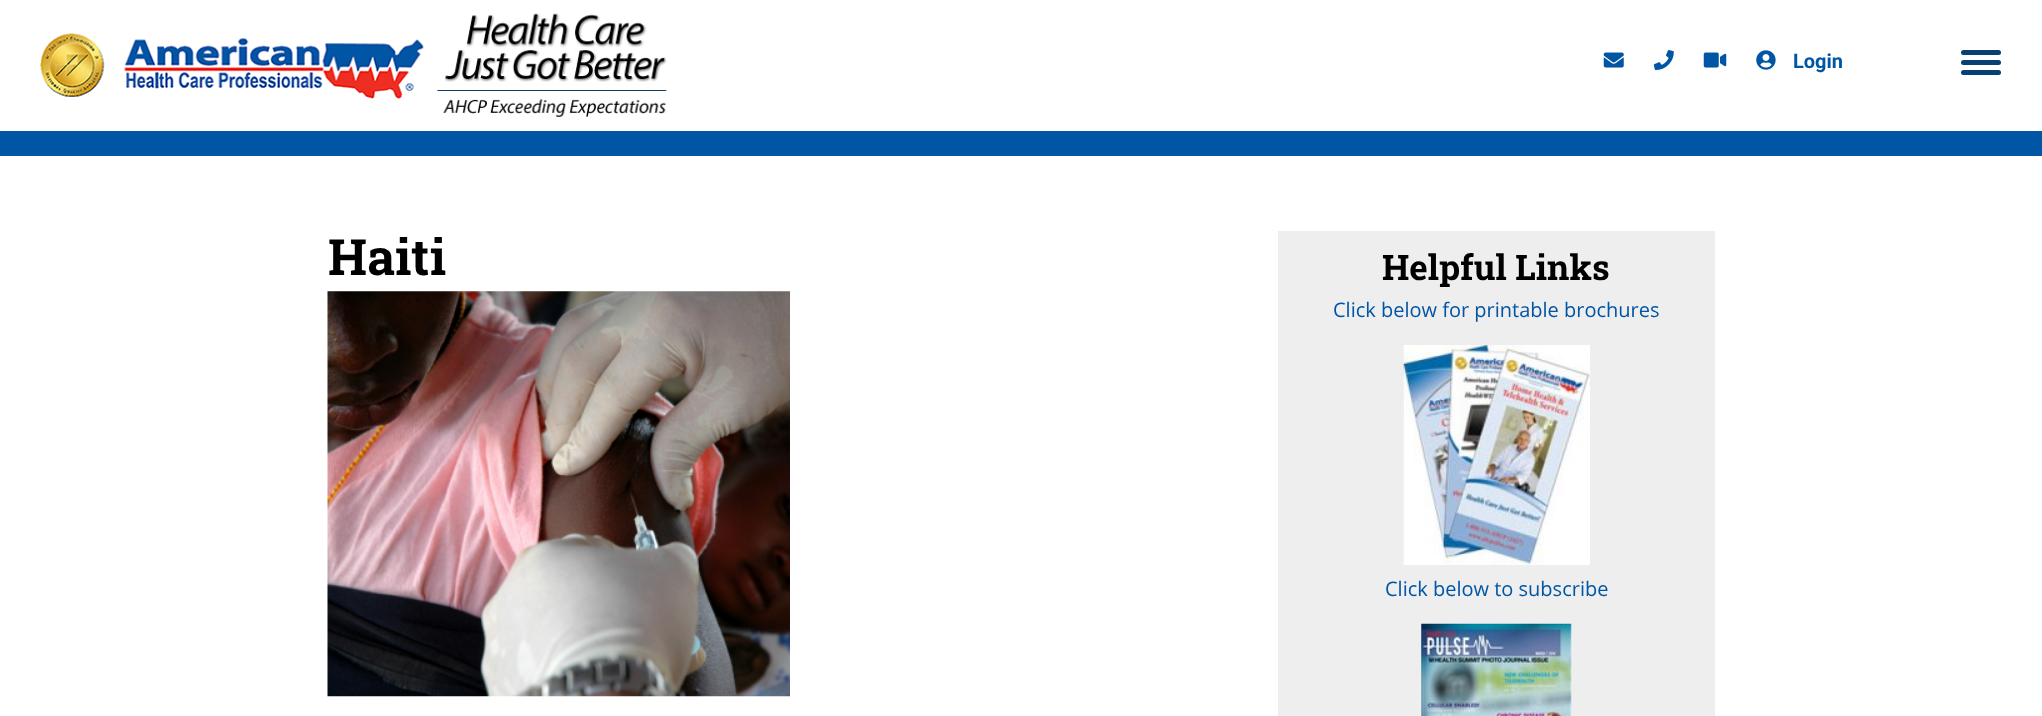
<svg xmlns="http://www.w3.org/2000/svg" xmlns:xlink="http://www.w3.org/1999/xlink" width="2042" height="716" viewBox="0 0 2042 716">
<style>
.cls-1{font:bold 20px Roboto;fill:#0055a5}
.cls-2{font:bold 50px Roboto Slab;fill:#000000}
.cls-3{font:bold 35px Roboto Slab;fill:#000000}
.cls-4{font:20px Open Sans;fill:#0055a5}
</style>
<rect width="100%" height="100%" fill="#ffffff"/>
<rect fill="#0055a5" x="0" y="131" width="2042" height="25"/>
<image xlink:href="image0.png" x="40" y="13" width="627" height="104"/>
<image xlink:href="image1.png" x="1603" y="52" width="21" height="16"/>
<image xlink:href="image2.png" x="1653" y="50" width="21" height="20"/>
<image xlink:href="image3.png" x="1703" y="52" width="24" height="16"/>
<image xlink:href="image4.png" x="1756" y="50" width="20" height="20"/>
<rect fill="#084074" x="1961" y="50" width="40" height="5" rx="2.5"/>
<rect fill="#084074" x="1961" y="60" width="40" height="5" rx="2.5"/>
<rect fill="#084074" x="1961" y="70" width="40" height="5" rx="2.5"/>
<image xlink:href="image5.png" x="327" y="291" width="463" height="406"/>
<rect fill="#eeeeee" x="1278" y="231" width="437" height="485"/>
<image xlink:href="image6.png" x="1403" y="345" width="187" height="220"/>
<image xlink:href="image7.png" x="1421" y="623" width="151" height="93"/>
<text class="cls-1" x="1793" y="68">Login</text>
<text class="cls-2" x="328" y="275">Haiti</text>
<text class="cls-3" x="1382" y="280">Helpful Links</text>
<text class="cls-4" x="1333" y="317">Click below for printable brochures</text>
<text class="cls-4" x="1385" y="596">Click below to subscribe</text>
</svg>
